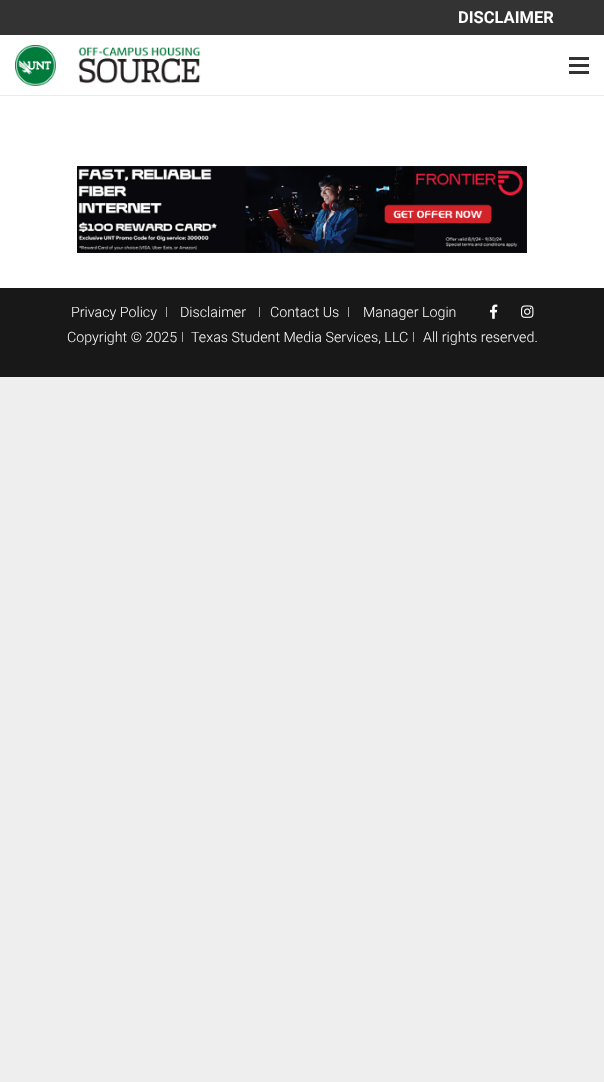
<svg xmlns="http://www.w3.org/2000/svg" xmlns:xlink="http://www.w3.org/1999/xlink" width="604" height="1082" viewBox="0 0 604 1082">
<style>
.cls-1{font:bold 16.5px Roboto;fill:#ffffff}
.cls-2{font:300 14.25px Roboto;fill:#ffffff}
</style>
<rect width="100%" height="100%" fill="#eeeeee"/>
<rect fill="#ffffff" x="0" y="96" width="604" height="192"/>
<rect fill="#333333" x="0" y="0" width="604" height="35"/>
<rect fill="#ebebeb" x="0" y="95" width="604" height="1"/>
<rect fill="#ffffff" x="0" y="35" width="604" height="60"/>
<image xlink:href="image0.png" x="15" y="45" width="41" height="41"/>
<image xlink:href="image1.png" x="78" y="47" width="123" height="37"/>
<rect fill="#333333" x="569" y="64" width="20" height="3"/>
<rect fill="#333333" x="569" y="57" width="20" height="3"/>
<rect fill="#333333" x="569" y="71" width="20" height="3"/>
<image xlink:href="image2.png" x="77" y="166" width="450" height="87"/>
<rect fill="#181818" x="0" y="288" width="604" height="89"/>
<rect fill="#a7a7a7" x="166" y="307" width="1" height="10"/>
<rect fill="#a7a7a7" x="259" y="307" width="1" height="10"/>
<rect fill="#a7a7a7" x="348" y="307" width="1" height="10"/>
<image xlink:href="image3.png" x="490" y="304" width="8" height="15"/>
<image xlink:href="image4.png" x="521" y="305" width="13" height="13"/>
<rect fill="#a7a7a7" x="182" y="332" width="1" height="10"/>
<rect fill="#a7a7a7" x="413" y="332" width="1" height="10"/>
<text class="cls-1" x="458" y="23">DISCLAIMER</text>
<text class="cls-2" x="71" y="317">Privacy Policy</text>
<text class="cls-2" x="180" y="317">Disclaimer</text>
<text class="cls-2" x="270" y="317">Contact Us</text>
<text class="cls-2" x="363" y="317">Manager Login</text>
<text class="cls-2" x="67" y="342">Copyright © 2025</text>
<text class="cls-2" x="191" y="342">Texas Student Media Services, LLC</text>
<text class="cls-2" x="423" y="342">All rights reserved.</text>
</svg>
